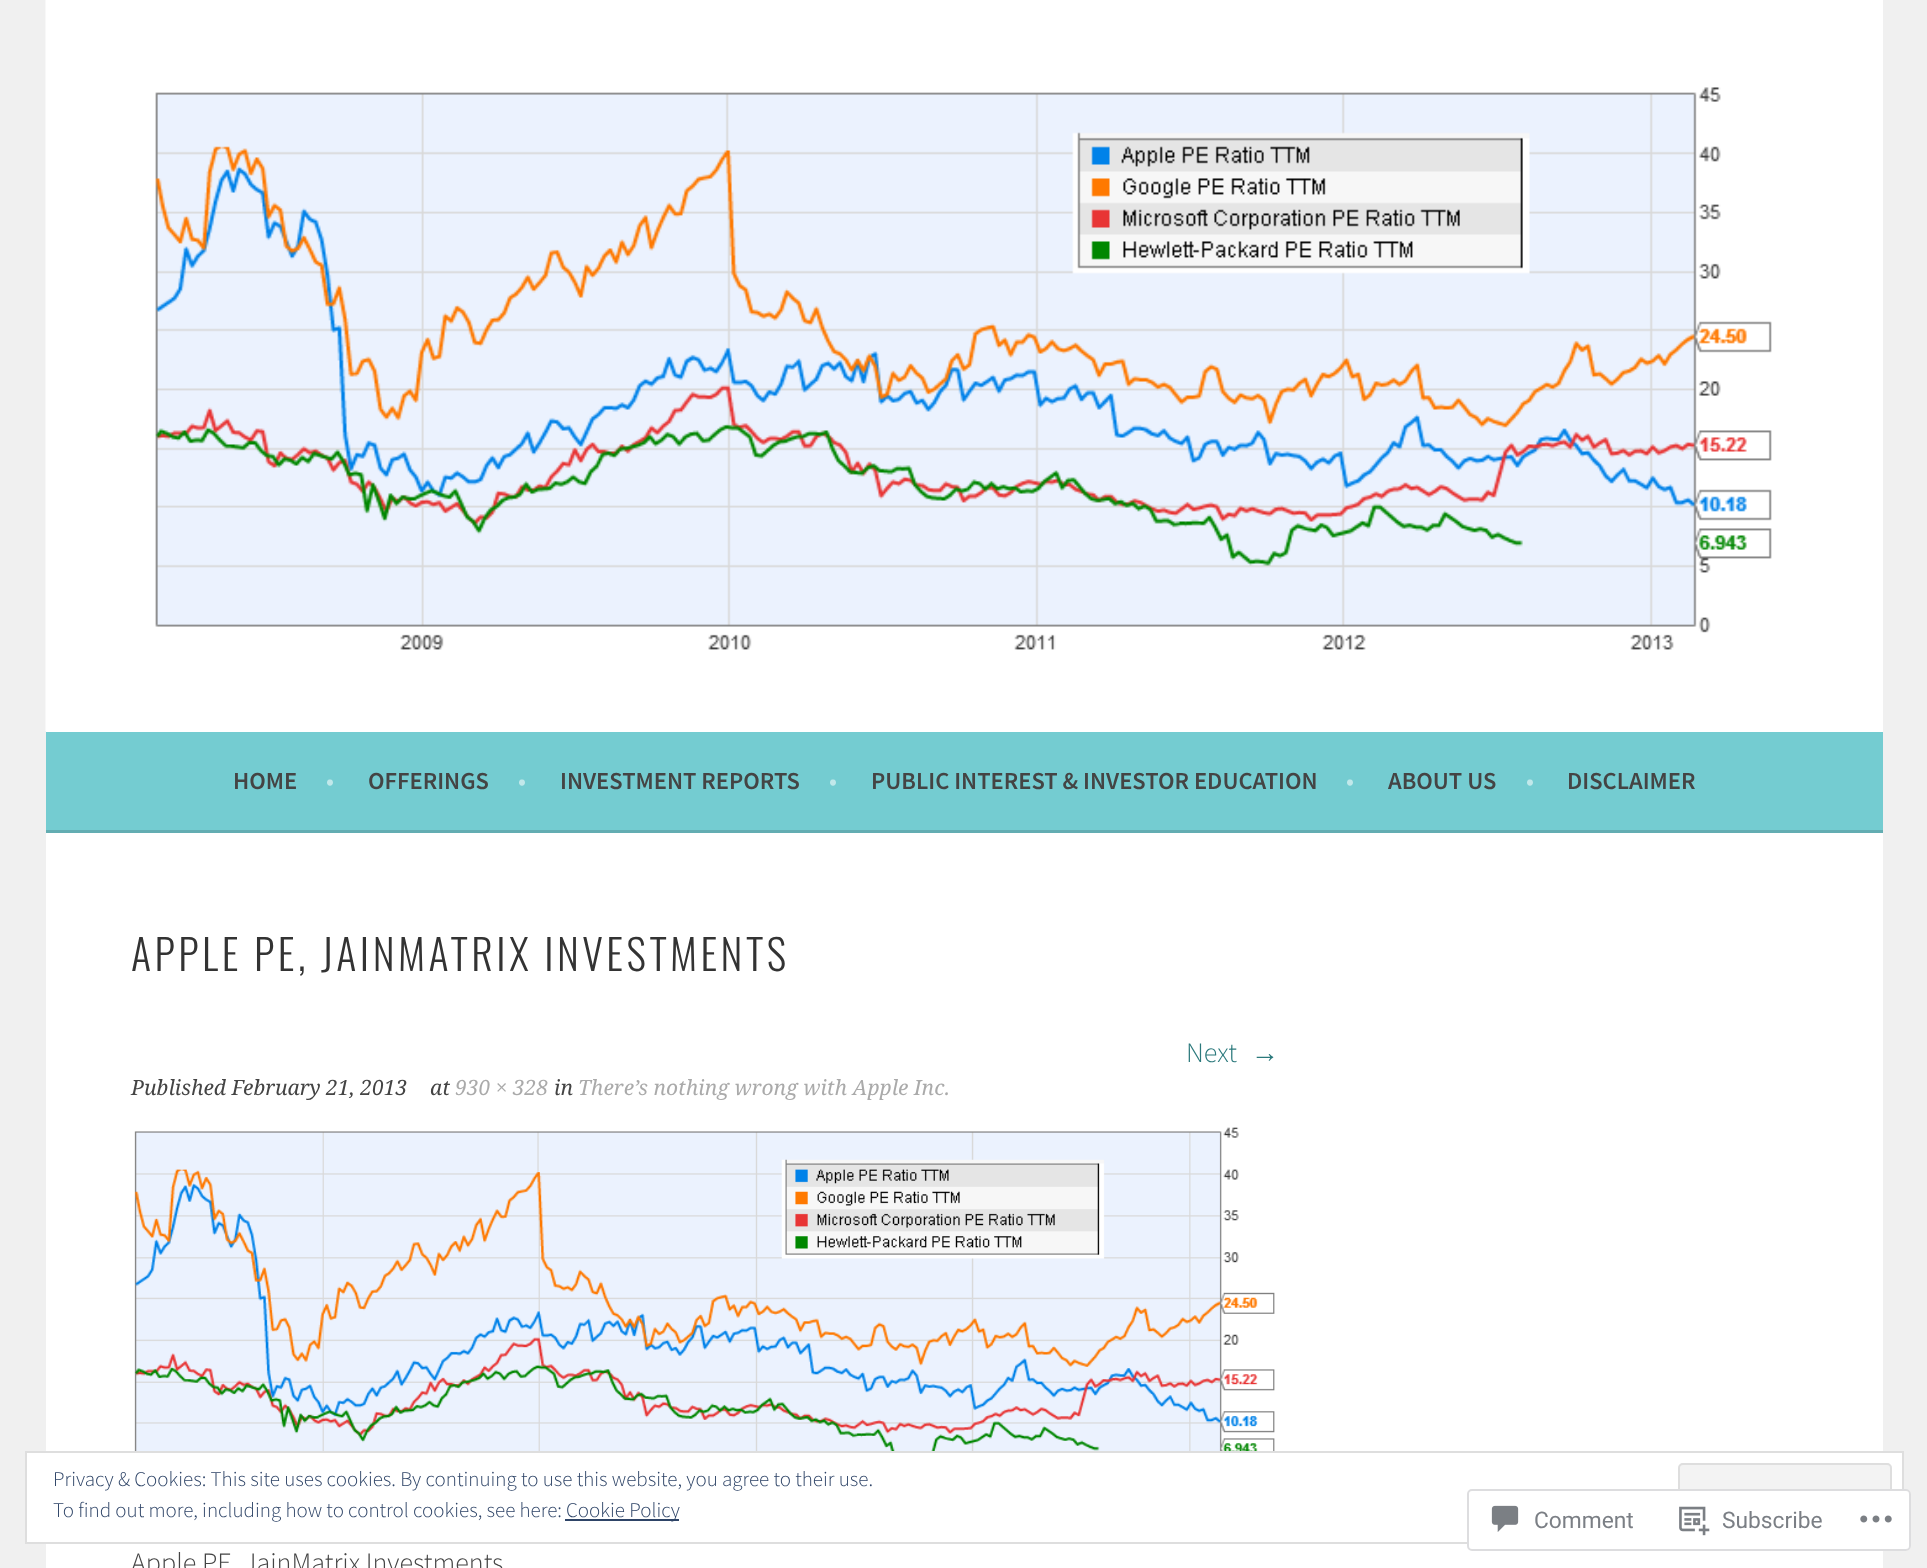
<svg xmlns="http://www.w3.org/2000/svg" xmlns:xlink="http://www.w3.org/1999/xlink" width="1927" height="1568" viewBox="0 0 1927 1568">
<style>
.cls-1{font:600 24.5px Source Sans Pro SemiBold;fill:#444444}
.cls-2{font:600 24.5px Source Sans Pro SemiBold;fill:#c1e8ea}
.cls-3{font:300 42px Oswald;letter-spacing:3.5px;fill:#333333}
.cls-4{font:300 28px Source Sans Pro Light;fill:#2b797c}
.cls-5{font:28px Liberation Sans;fill:#2b797c}
.cls-6{font:italic 21px Droid Serif;fill:#444444}
.cls-7{font:italic 21px Droid Serif;fill:#aaaaaa}
.cls-8{font:300 28px Source Sans Pro Light;fill:#444444}
.cls-9{font:300 21px Source Sans Pro Light;fill:#2e4467}
.cls-10{font:22.75px Roboto;fill:#7b7f85}
</style>
<rect width="100%" height="100%" fill="#f0f0f0"/>
<rect fill="#ffffff" x="46" y="0" width="1837" height="732"/>
<image xlink:href="image0.png" x="45" y="0" width="1524" height="731"/>
<image xlink:href="image1.png" x="155" y="87" width="1617" height="563"/>
<rect fill="#74ccd1" x="46" y="732" width="1837" height="98"/>
<rect fill="#63adb2" x="46" y="830" width="1837" height="3"/>
<rect fill="#ffffff" x="46" y="833" width="1837" height="735"/>
<image xlink:href="image2.png" x="134" y="1127" width="1141" height="324"/>
<rect fill="#ffffff" stroke="#dedede" stroke-width="2" x="26" y="1452" width="1877" height="91"/>
<rect fill="#f3f3f3" x="1678" y="1463" width="214" height="68" rx="5"/>
<path fill="#dbdbdb" d="M1680 1522V1526C1680 1528 1682 1530 1684 1530H1886C1888 1530 1890 1528 1890 1526V1522C1890 1524 1888 1526 1886 1526H1684C1682 1526 1680 1524 1680 1522Z"/>
<rect fill="none" stroke="#dedede" stroke-width="2" x="1679" y="1464" width="212" height="66" rx="4"/>
<rect fill="#2e4467" x="565" y="1519" width="114" height="2"/>
<rect fill="#ffffff" fill-opacity="0.98" x="1467" y="1489" width="444" height="62" rx="5"/>
<rect fill="none" stroke="#dcdcde" stroke-opacity="0.98" stroke-width="2" x="1468" y="1490" width="442" height="60" rx="4"/>
<image xlink:href="image3.png" x="1491" y="1505" width="28" height="27"/>
<image xlink:href="image4.png" x="1679" y="1506" width="31" height="30"/>
<image xlink:href="image5.png" x="1860" y="1515" width="32" height="8"/>
<text class="cls-1" x="233" y="789">HOME</text>
<text class="cls-2" x="326" y="789">•</text>
<text class="cls-1" x="368" y="789">OFFERINGS</text>
<text class="cls-2" x="518" y="789">•</text>
<text class="cls-1" x="560" y="789">INVESTMENT REPORTS</text>
<text class="cls-2" x="829" y="789">•</text>
<text class="cls-1" x="871" y="789">PUBLIC INTEREST &amp; INVESTOR EDUCATION</text>
<text class="cls-2" x="1346" y="789">•</text>
<text class="cls-1" x="1388" y="789">ABOUT US</text>
<text class="cls-2" x="1526" y="789">•</text>
<text class="cls-1" x="1567" y="789">DISCLAIMER</text>
<text class="cls-3" x="131" y="971">APPLE PE, JAINMATRIX INVESTMENTS</text>
<text class="cls-4" x="1186" y="1062">Next</text>
<text class="cls-5" x="1251" y="1062">→</text>
<text class="cls-6" x="131" y="1095">Published February 21, 2013</text>
<text class="cls-6" x="430" y="1095">at</text>
<text class="cls-7" x="455" y="1095">930 × 328</text>
<text class="cls-6" x="554" y="1095">in</text>
<text class="cls-7" x="578" y="1095">There’s nothing wrong with Apple Inc.</text>
<text class="cls-8" x="131" y="1572">Apple PE, JainMatrix Investments</text>
<text class="cls-9"><tspan x="53" y="1486">Privacy &amp; Cookies: This site uses cookies. By continuing to use this website, you agree to their use.</tspan><tspan x="53" y="1517">To find out more, including how to control cookies, see here:</tspan></text>
<text class="cls-9" x="566" y="1517">Cookie Policy</text>
<text class="cls-10" x="1534" y="1528">Comment</text>
<text class="cls-10" x="1722" y="1528">Subscribe</text>
</svg>
